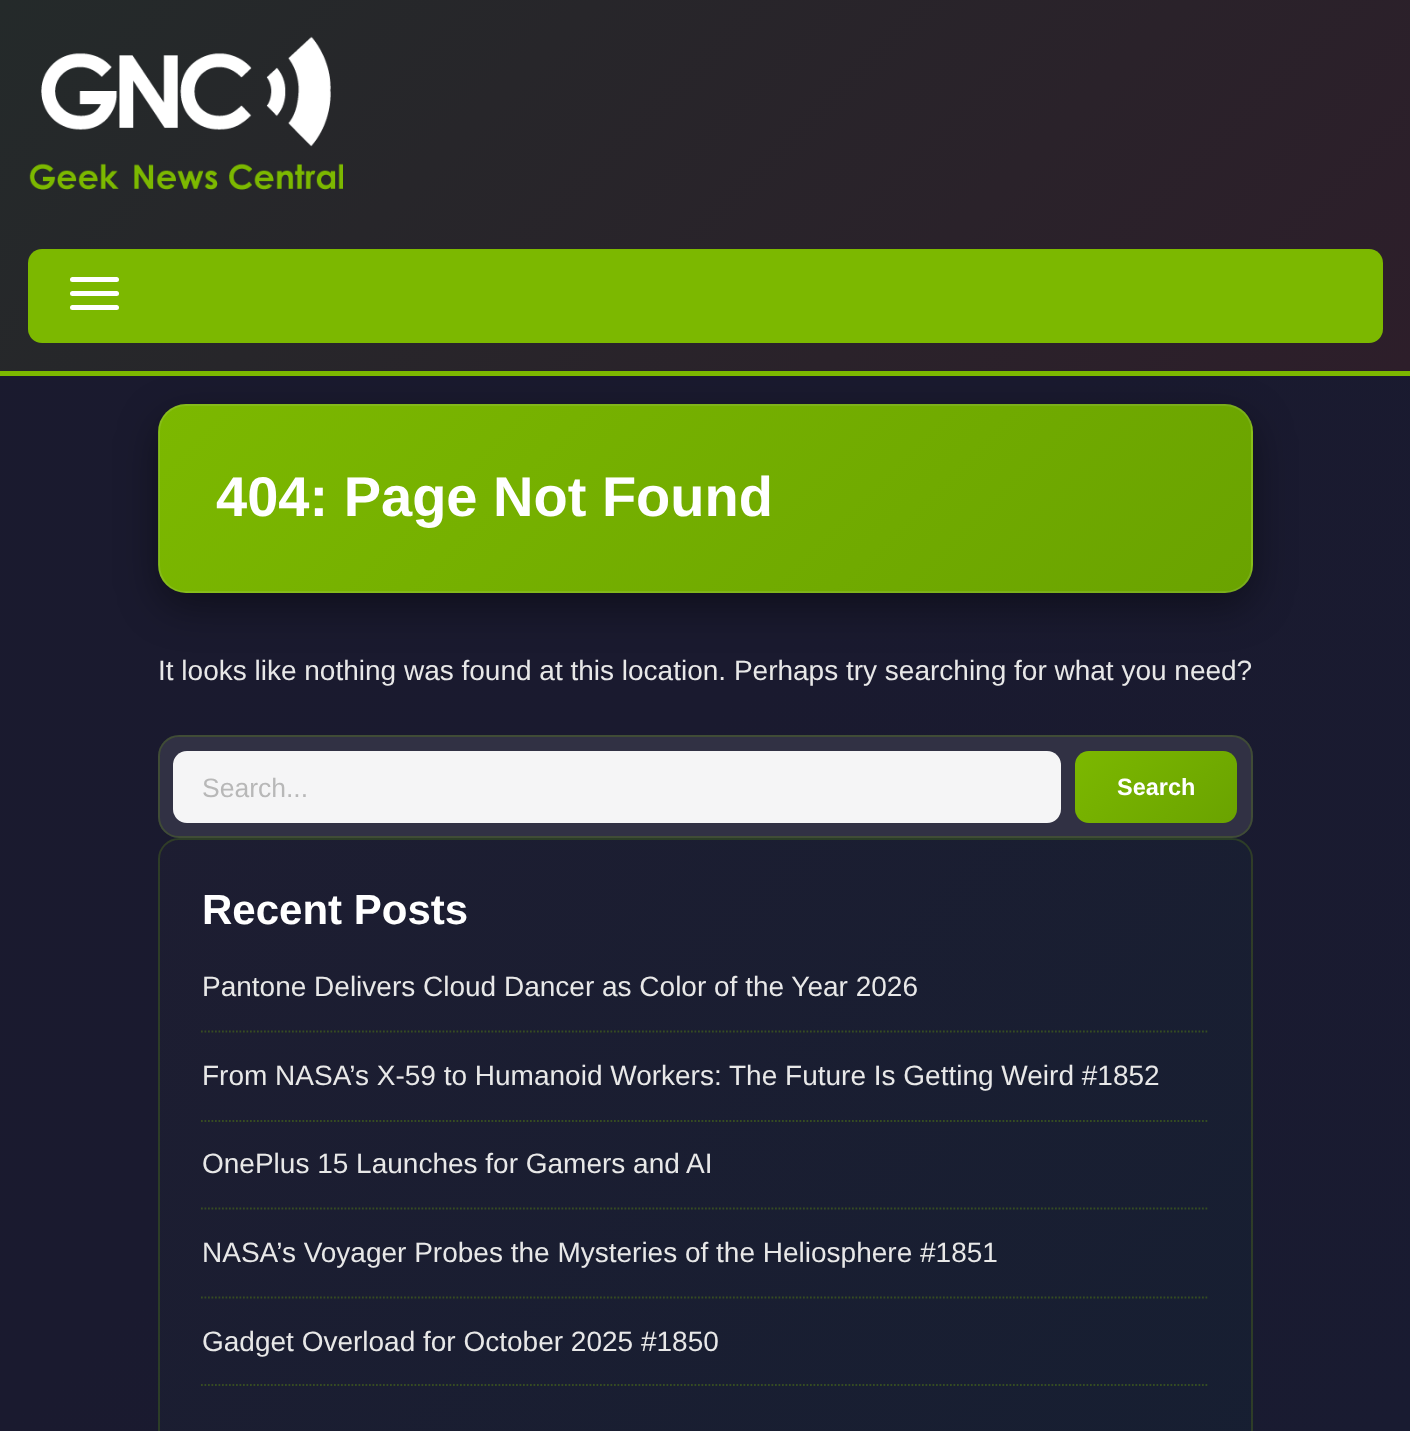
<svg xmlns="http://www.w3.org/2000/svg" xmlns:xlink="http://www.w3.org/1999/xlink" width="1410" height="1431" viewBox="0 0 1410 1431">
<style>
.cls-1{font:bold 56px Liberation Sans;fill:#ffffff}
.cls-2{font:28px Liberation Sans;fill:#e8e8e8}
.cls-3{font:26.5px Liberation Sans;fill:#b8b8b8}
.cls-4{font:bold 23.5px Liberation Sans;fill:#ffffff}
.cls-5{font:bold 42px Liberation Sans;fill:#ffffff}
</style>
<defs>
<linearGradient id="g1" gradientUnits="userSpaceOnUse" x1="-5.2" y1="5.3" x2="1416" y2="1426"><stop offset="0" stop-color="#1a1a2e"/><stop offset="0.5" stop-color="#1a1a2f"/><stop offset="1" stop-color="#191b31"/></linearGradient>
<linearGradient id="g2" gradientUnits="userSpaceOnUse" x1="260" y1="-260" x2="1151" y2="631"><stop offset="0" stop-color="#242a2a"/><stop offset="1" stop-color="#2d1e2a"/></linearGradient>
<clipPath id="clip1"><rect x="158" y="404" width="1095" height="189" rx="28"/></clipPath>
<linearGradient id="g3" gradientUnits="userSpaceOnUse" x1="386" y1="-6.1" x2="1025" y2="633"><stop offset="0" stop-color="#7cb800"/><stop offset="1" stop-color="#6aa300"/></linearGradient>
<linearGradient id="g4" gradientUnits="userSpaceOnUse" x1="-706" y1="179" x2="-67" y2="818"><stop offset="0" stop-color="#7cb800"/><stop offset="1" stop-color="#6aa300"/></linearGradient>
<linearGradient id="g5" gradientUnits="userSpaceOnUse" x1="386" y1="179" x2="1025" y2="818"><stop offset="0" stop-color="#7cb800"/><stop offset="1" stop-color="#6aa300"/></linearGradient>
<linearGradient id="g6" gradientUnits="userSpaceOnUse" x1="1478" y1="179" x2="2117" y2="818"><stop offset="0" stop-color="#7cb800"/><stop offset="1" stop-color="#6aa300"/></linearGradient>
<linearGradient id="g7" gradientUnits="userSpaceOnUse" x1="386" y1="365" x2="1025" y2="1004"><stop offset="0" stop-color="#7cb800"/><stop offset="1" stop-color="#6aa300"/></linearGradient>
<linearGradient id="g8" gradientUnits="userSpaceOnUse" x1="1097" y1="728" x2="1215" y2="845"><stop offset="0" stop-color="#7cb800"/><stop offset="1" stop-color="#6aa300"/></linearGradient>
<clipPath id="clip2"><rect x="158" y="838" width="1095" height="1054" rx="21"/></clipPath>
<linearGradient id="g9" gradientUnits="userSpaceOnUse" x1="170" y1="-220" x2="1241" y2="850"><stop offset="0" stop-color="#1e1e32" stop-opacity="0.8"/><stop offset="1" stop-color="#142032" stop-opacity="0.8"/></linearGradient>
<linearGradient id="g10" gradientUnits="userSpaceOnUse" x1="-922" y1="830" x2="149" y2="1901"><stop offset="0" stop-color="#1d1d31"/><stop offset="1" stop-color="#151f31"/></linearGradient>
<linearGradient id="g11" gradientUnits="userSpaceOnUse" x1="170" y1="830" x2="1241" y2="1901"><stop offset="0" stop-color="#1e1e32" stop-opacity="0.8"/><stop offset="1" stop-color="#142032" stop-opacity="0.8"/></linearGradient>
<linearGradient id="g12" gradientUnits="userSpaceOnUse" x1="1262" y1="830" x2="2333" y2="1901"><stop offset="0" stop-color="#1e1e32" stop-opacity="0.8"/><stop offset="1" stop-color="#142032" stop-opacity="0.8"/></linearGradient>
</defs>
<rect width="100%" height="100%" fill="#ffffff"/>
<rect fill="url(#g1)" x="0" y="376" width="1410" height="1055"/>
<rect fill="#000000" fill-opacity="0.4" filter="blur(21px)" x="158" y="418" width="1095" height="189" rx="28"/>
<rect fill="url(#g2)" x="0" y="0" width="1410" height="371"/>
<rect fill="#7cb800" x="0" y="371" width="1410" height="5"/>
<image xlink:href="image0.png" x="29" y="36" width="314" height="154"/>
<rect fill="#7cb800" x="28" y="249" width="1355" height="94" rx="14"/>
<rect fill="#ffffff" x="70" y="277" width="49" height="5" rx="2.5"/>
<rect fill="#ffffff" x="70" y="291" width="49" height="5" rx="2.5"/>
<rect fill="#ffffff" x="70" y="305" width="49" height="5" rx="2.5"/>
<g clip-path="url(#clip1)">
<rect fill="url(#g3)" x="175" y="404" width="1061" height="2"/>
<rect fill="url(#g4)" x="158" y="425" width="1" height="147"/>
<rect fill="url(#g5)" x="159" y="406" width="1092" height="186"/>
<rect fill="url(#g6)" x="1251" y="421" width="2" height="154"/>
<rect fill="url(#g7)" x="179" y="592" width="1053" height="1"/>
</g>
<rect fill="none" stroke="#ffffff" stroke-opacity="0.1" stroke-width="2" x="159" y="405" width="1093" height="187" rx="27"/>
<rect fill="#313144" x="158" y="735" width="1095" height="103" rx="21"/>
<rect fill="none" stroke="#7cb800" stroke-opacity="0.2" stroke-width="2" x="159" y="736" width="1093" height="101" rx="20"/>
<rect fill="#f5f5f6" x="173" y="751" width="888" height="72" rx="14"/>
<rect fill="url(#g8)" x="1075" y="751" width="162" height="72" rx="14"/>
<g clip-path="url(#clip2)">
<rect fill="url(#g9)" x="170" y="838" width="1071" height="2"/>
<rect fill="url(#g10)" x="158" y="852" width="1" height="579"/>
<rect fill="url(#g11)" x="159" y="840" width="1092" height="591"/>
<rect fill="url(#g12)" x="1251" y="850" width="2" height="581"/>
</g>
<rect fill="none" stroke="#7cb800" stroke-opacity="0.2" stroke-width="2" x="159" y="839" width="1093" height="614" rx="20"/>
<path fill="none" stroke="#7cb800" stroke-opacity="0.3" stroke-width="1.8" stroke-dasharray="1.75 1.75" d="M201 1031.5H1209"/>
<path fill="none" stroke="#7cb800" stroke-opacity="0.3" stroke-width="1.8" stroke-dasharray="1.75 1.75" d="M201 1121H1209"/>
<path fill="none" stroke="#7cb800" stroke-opacity="0.3" stroke-width="1.8" stroke-dasharray="1.75 1.75" d="M201 1208.5H1209"/>
<path fill="none" stroke="#7cb800" stroke-opacity="0.3" stroke-width="1.8" stroke-dasharray="1.75 1.75" d="M201 1297.5H1209"/>
<path fill="none" stroke="#7cb800" stroke-opacity="0.3" stroke-width="1.8" stroke-dasharray="1.75 1.75" d="M201 1385H1209"/>
<text class="cls-1" x="216" y="516">404: Page Not Found</text>
<text class="cls-2" x="158" y="680">It looks like nothing was found at this location. Perhaps try searching for what you need?</text>
<text class="cls-3" x="202" y="797">Search...</text>
<text class="cls-4" x="1117" y="795">Search</text>
<text class="cls-5" x="202" y="924">Recent Posts</text>
<text class="cls-2" x="202" y="996">Pantone Delivers Cloud Dancer as Color of the Year 2026</text>
<text class="cls-2" x="202" y="1085">From NASA’s X-59 to Humanoid Workers: The Future Is Getting Weird #1852</text>
<text class="cls-2" x="202" y="1173">OnePlus 15 Launches for Gamers and AI</text>
<text class="cls-2" x="202" y="1262">NASA’s Voyager Probes the Mysteries of the Heliosphere #1851</text>
<text class="cls-2" x="202" y="1351">Gadget Overload for October 2025 #1850</text>
</svg>
